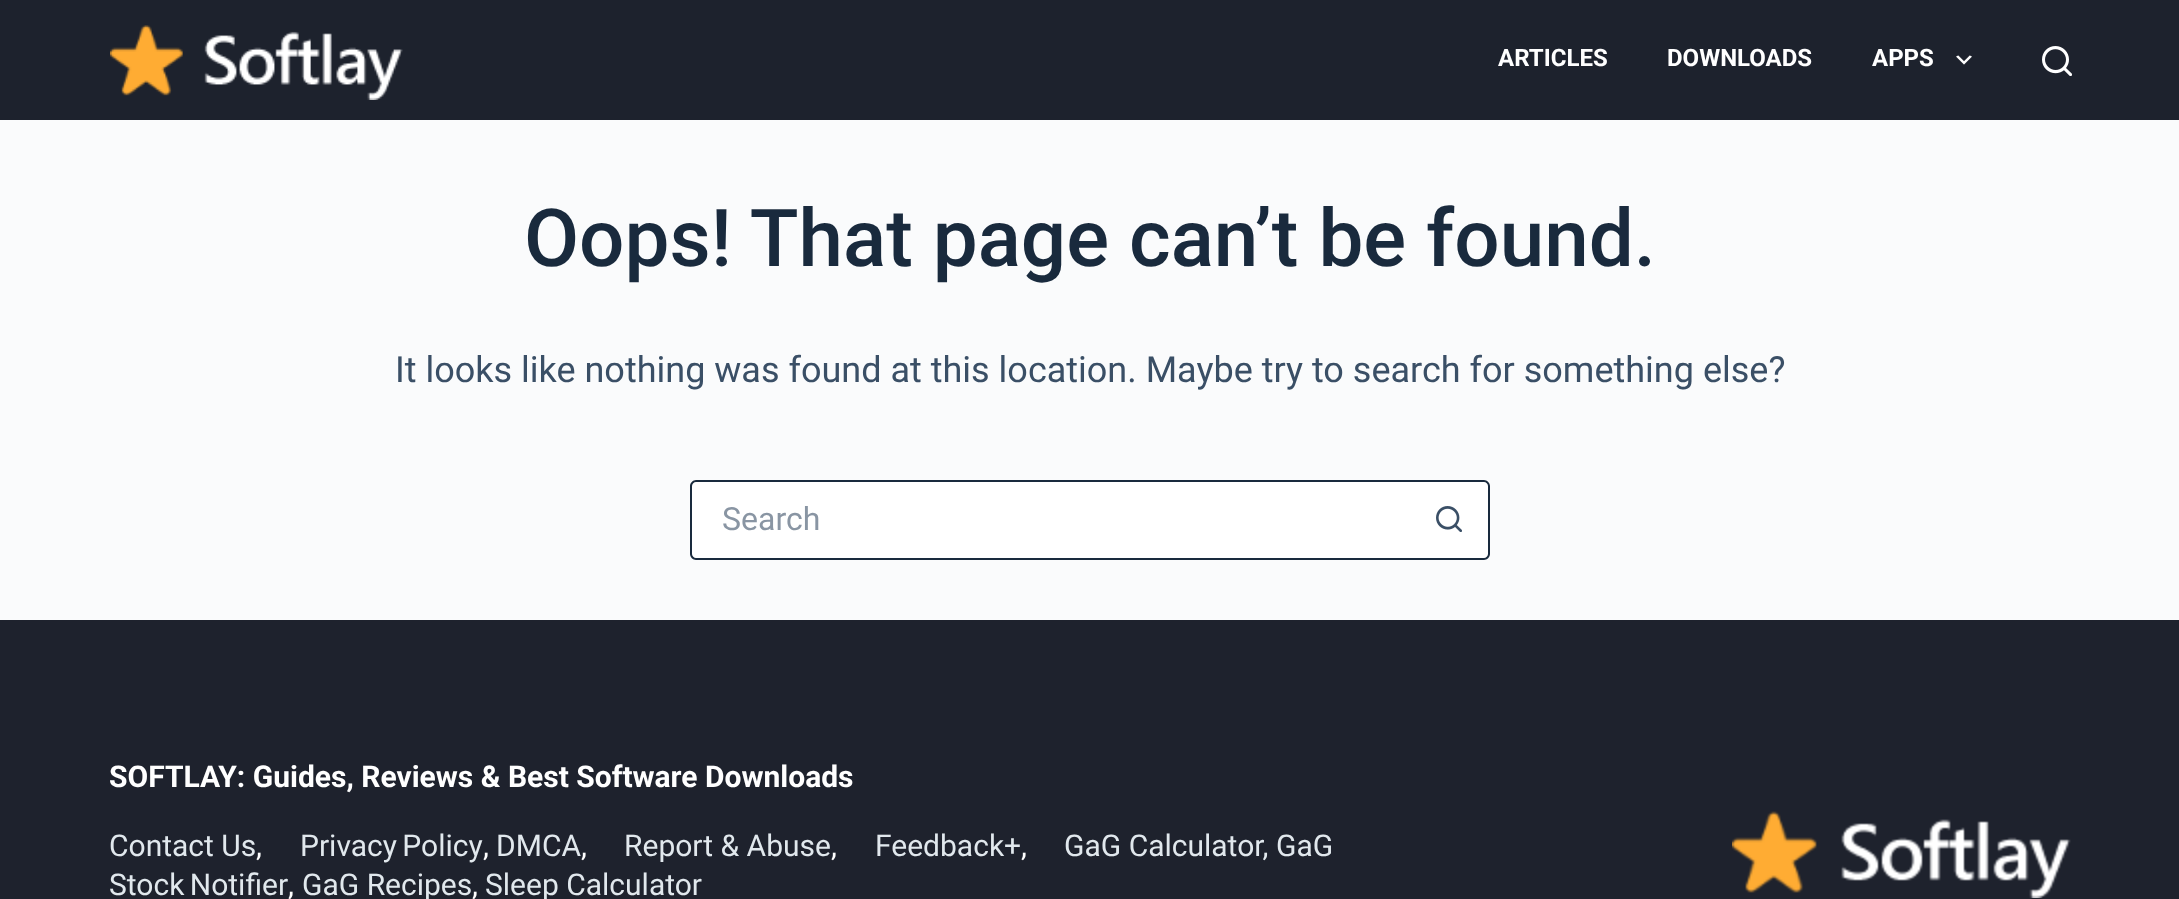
<svg xmlns="http://www.w3.org/2000/svg" xmlns:xlink="http://www.w3.org/1999/xlink" width="2179" height="899" viewBox="0 0 2179 899">
<style>
.cls-1{font:bold 24px Roboto;fill:#ffffff}
.cls-2{font:500 80px Roboto;fill:#192a3d}
.cls-3{font:36px Roboto;fill:#3a4f66}
.cls-4{font:32px Roboto;fill:#8995a3}
.cls-5{font:bold 30px Roboto;fill:#ffffff}
.cls-6{font:30px Roboto;fill:#e1e8ed}
.cls-7{font:30px Roboto;fill:#ffffff}
</style>
<rect width="100%" height="100%" fill="#fafbfc"/>
<rect fill="#1d222d" x="0" y="0" width="2179" height="120"/>
<image xlink:href="image0.png" x="110" y="25" width="293" height="75"/>
<image xlink:href="image1.png" x="1956" y="55" width="16" height="10"/>
<image xlink:href="image2.png" x="2042" y="46" width="30" height="30"/>
<path fill="#ffffff" d="M696 480H1410V560H696C692.5 560 690 557.5 690 554V486C690 482.5 692.5 480 696 480Z"/>
<path fill="#192a3d" fill-rule="evenodd" d="M696 480H1410V560H696C693 560 690 557 690 554V486C690 483 693 480 696 480ZM696 482H1410V558H696C694 558 692 556 692 554V486C692 484 694 482 696 482Z"/>
<path fill="#ffffff" d="M1410 480H1484C1487.5 480 1490 482.5 1490 486V554C1490 557.5 1487.5 560 1484 560H1410Z"/>
<path fill="#192a3d" fill-rule="evenodd" d="M1410 480H1484C1487 480 1490 483 1490 486V554C1490 557 1487 560 1484 560H1410ZM1410 482H1484C1486 482 1488 484 1488 486V554C1488 556 1486 558 1484 558H1410Z"/>
<image xlink:href="image3.png" x="1436" y="506" width="26" height="26"/>
<rect fill="#1e222d" x="0" y="620" width="2179" height="279"/>
<image xlink:href="image4.png" x="1732" y="811" width="339" height="87"/>
<text class="cls-1" x="1498" y="66">ARTICLES</text>
<text class="cls-1" x="1667" y="66">DOWNLOADS</text>
<text class="cls-1" x="1872" y="66">APPS</text>
<text class="cls-2" x="524" y="266">Oops! That page can’t be found.</text>
<text class="cls-3" x="395" y="382">It looks like nothing was found at this location. Maybe try to search for something else?</text>
<text class="cls-4" x="722" y="530">Search</text>
<text class="cls-5" x="109" y="787">SOFTLAY: Guides, Reviews &amp; Best Software Downloads</text>
<text class="cls-6" x="109" y="856">Contact Us</text>
<text class="cls-7" x="256" y="856">,</text>
<text class="cls-6" x="300" y="856" word-spacing="-2">Privacy Policy</text>
<text class="cls-7" x="483" y="856">,</text>
<text class="cls-6" x="496" y="856">DMCA</text>
<text class="cls-7" x="581" y="856">,</text>
<text class="cls-6" x="624" y="856">Report &amp; Abuse</text>
<text class="cls-7" x="831" y="856">,</text>
<text class="cls-6" x="875" y="856">Feedback+</text>
<text class="cls-7" x="1021" y="856">,</text>
<text class="cls-6" x="1064" y="856">GaG Calculator, GaG</text>
<text class="cls-6" x="109" y="895" word-spacing="-2">Stock Notifier</text>
<text class="cls-7" x="288" y="895">,</text>
<text class="cls-6" x="302" y="895">GaG Recipes</text>
<text class="cls-7" x="472" y="895">,</text>
<text class="cls-6" x="485" y="895">Sleep Calculator</text>
</svg>
